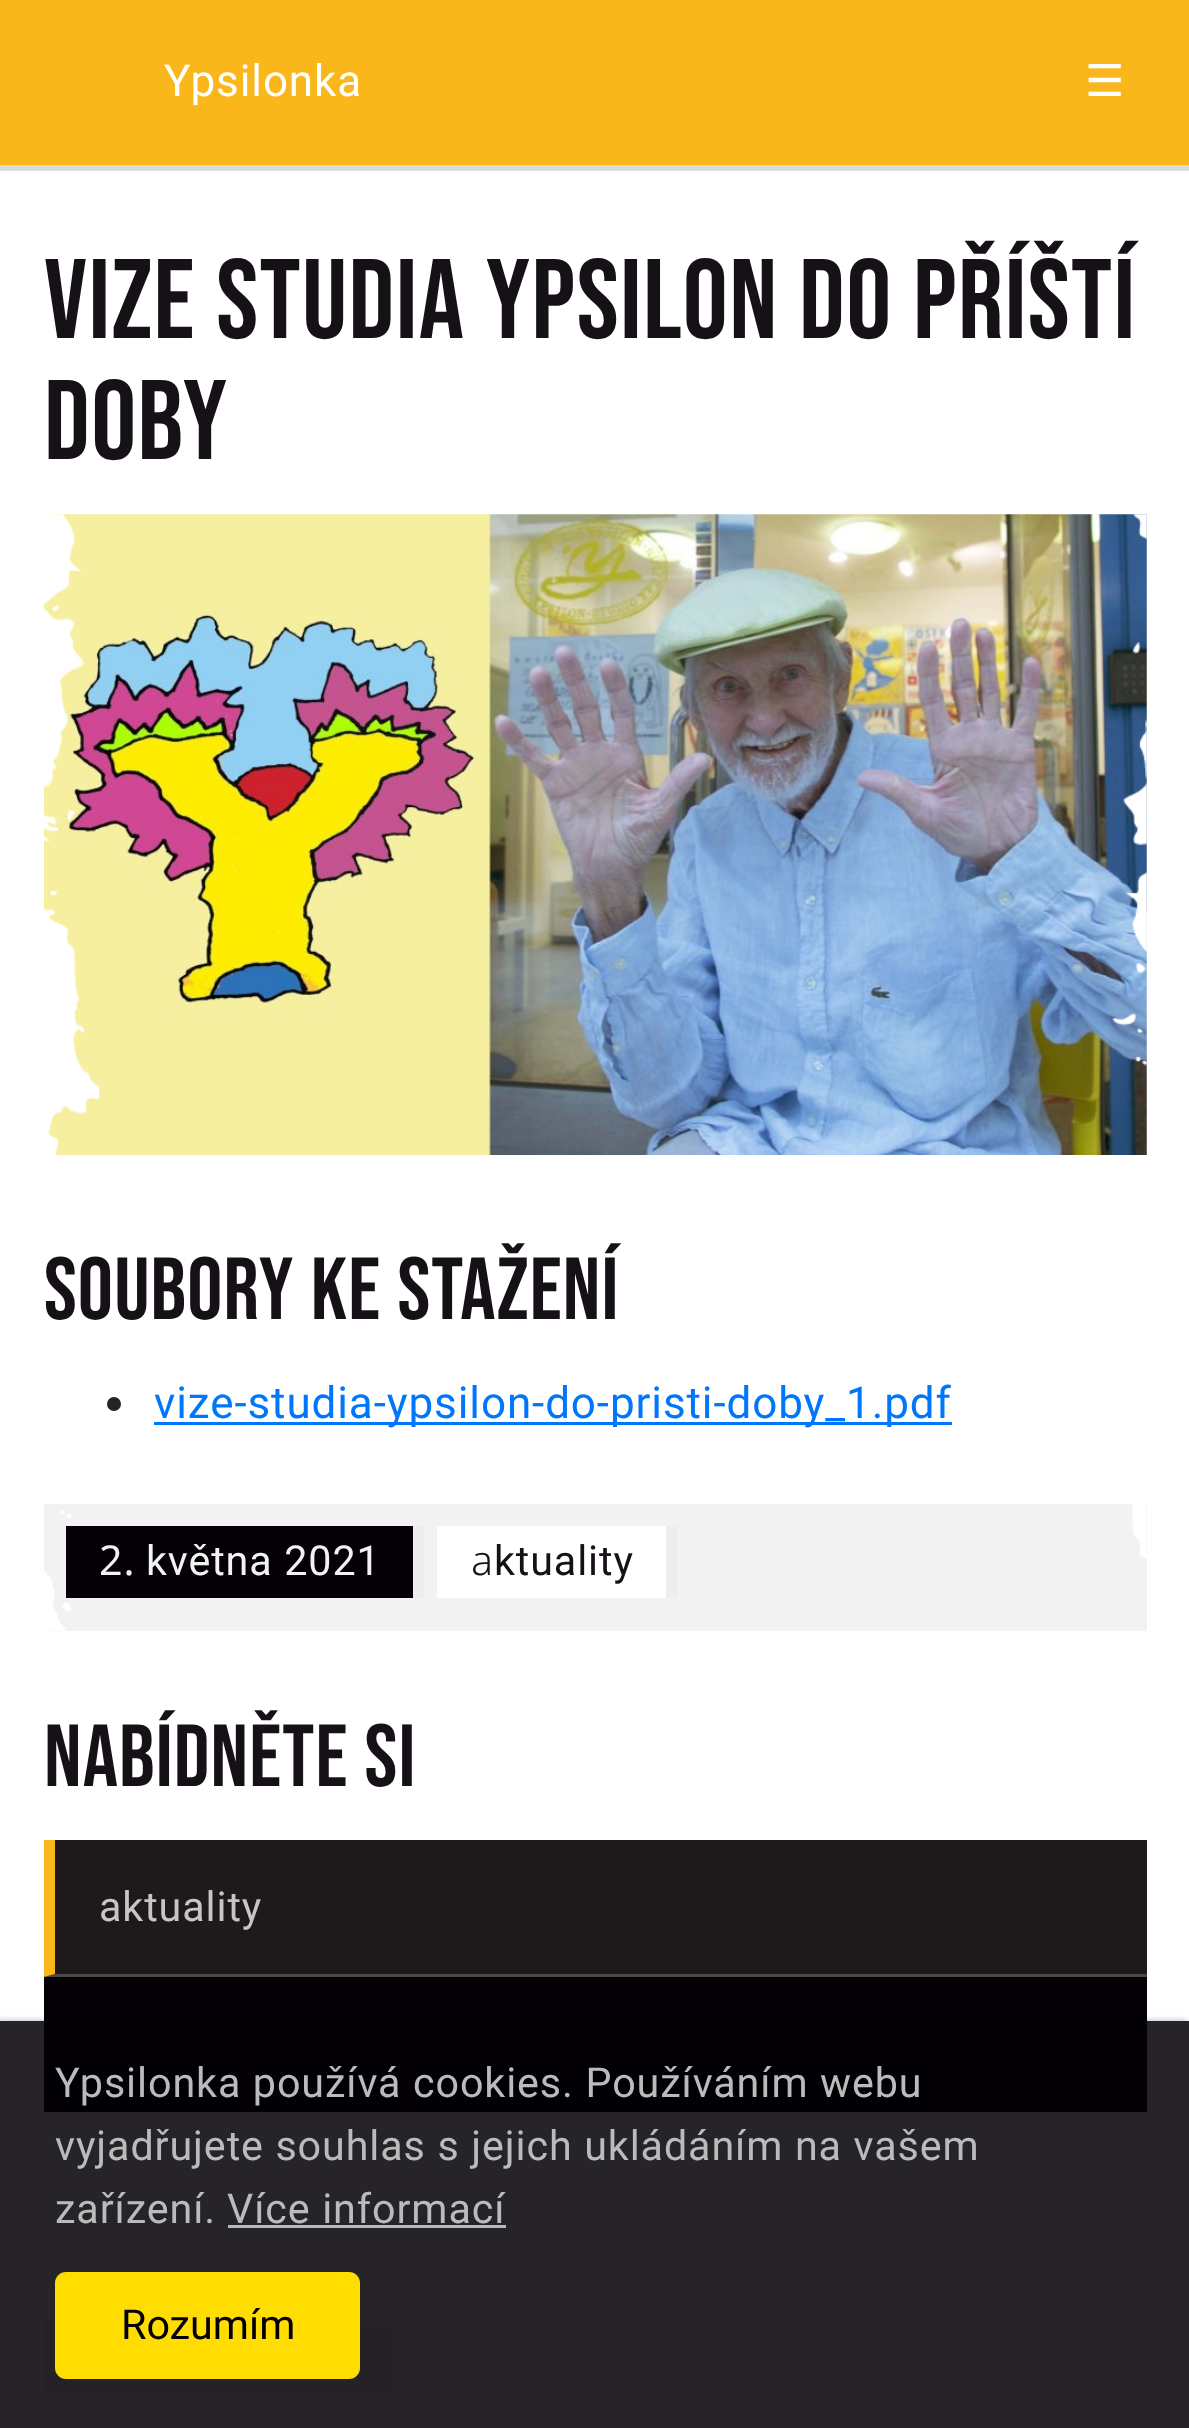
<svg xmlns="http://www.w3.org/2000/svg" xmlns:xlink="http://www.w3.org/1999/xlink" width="1189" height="2428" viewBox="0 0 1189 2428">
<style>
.cls-1{font:44px Roboto;letter-spacing:0.9px;fill:#ffffff}
.cls-2{font:44px DejaVu Sans;fill:#ffffff}
.cls-3{font:112.75px Bebas Neue;letter-spacing:1.35px;fill:#151117}
.cls-4{font:88px Bebas Neue;letter-spacing:1.1px;fill:#151117}
.cls-5{font:44px Roboto;letter-spacing:0.9px;fill:#0076fc}
.cls-6{font:41.25px Noto Sans;letter-spacing:0.9px;fill:#f2f2f2}
.cls-7{font:41.25px Roboto;letter-spacing:0.9px;fill:#f2f2f2}
.cls-8{font:300 41.25px Noto Sans;letter-spacing:0.9px;fill:#151117}
.cls-9{font:41.25px Roboto;letter-spacing:0.9px;fill:#151117}
.cls-10{font:41.25px Roboto;letter-spacing:0.9px;fill:#c6c6c6}
.cls-11{font:41.25px Roboto;letter-spacing:0.9px;fill:#bbbbbb}
.cls-12{font:41.25px Roboto;fill:#040006}
</style>
<defs>
<clipPath id="clip1"><path d="M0 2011H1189V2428H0ZM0 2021H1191V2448H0Z" clip-rule="evenodd"/></clipPath>
</defs>
<rect width="100%" height="100%" fill="#ffffff"/>
<path fill="#dcdbdb" d="M0 165V171H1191V6V165Z"/>
<rect fill="#fab71c" x="0" y="0" width="1189" height="165"/>
<image xlink:href="image0.png" x="44" y="514" width="1103" height="641"/>
<image xlink:href="image1.png" x="44" y="514" width="55" height="641"/>
<image xlink:href="image2.png" x="1112" y="514" width="35" height="552"/>
<circle fill="#262228" cx="114" cy="1404" r="7"/>
<rect fill="#0076fc" x="154" y="1422" width="798" height="3"/>
<rect fill="#f2f2f2" x="44" y="1504" width="1103" height="127"/>
<image xlink:href="image3.png" x="44" y="1510" width="28" height="121"/>
<rect fill="#040006" x="66" y="1526" width="347" height="72"/>
<rect fill="#ededed" x="413" y="1526" width="11" height="72"/>
<rect fill="#ffffff" x="437" y="1526" width="229" height="72"/>
<rect fill="#ededed" x="666" y="1526" width="11" height="72"/>
<image xlink:href="image4.png" x="1132" y="1504" width="15" height="55"/>
<rect fill="#1e1a1b" x="44" y="1840" width="1103" height="137"/>
<path fill="#4c4849" d="M1147 1977H44L55 1974H1147Z"/>
<path fill="#fab71c" d="M44 1977V1840H55V1974Z"/>
<rect fill="#040006" x="44" y="1977" width="1103" height="135"/>
<rect fill="#ededed" x="44" y="2321" width="349" height="72"/>
<g clip-path="url(#clip1)">
<rect fill="#000000" fill-opacity="0.3" filter="blur(3px)" x="-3" y="2021" width="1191" height="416"/>
</g>
<rect fill="#040006" fill-opacity="0.86" x="0" y="2021" width="1189" height="407"/>
<rect fill="#bbbbbb" x="228" y="2225" width="278" height="3"/>
<rect fill="#ffdd00" x="55" y="2272" width="305" height="107" rx="11"/>
<text class="cls-1" x="164" y="96">Ypsilonka</text>
<text class="cls-2" x="1085" y="96">☰</text>
<text class="cls-3"><tspan x="44" y="338" word-spacing="1">VIZE STUDIA YPSILON DO PŘÍŠTÍ</tspan><tspan x="44" y="459">DOBY</tspan></text>
<text class="cls-4" x="44" y="1319" word-spacing="1">Soubory ke stažení</text>
<text class="cls-5" x="154" y="1418">vize-studia-ypsilon-do-pristi-doby_1.pdf</text>
<text class="cls-6" x="99" y="1575">2.</text>
<text class="cls-7" x="146" y="1575" word-spacing="0.5">května 2021</text>
<text class="cls-8" x="471" y="1575">a</text>
<text class="cls-9" x="494" y="1575">ktuality</text>
<text class="cls-4" x="44" y="1786" word-spacing="1">Nabídněte si</text>
<text class="cls-10" x="99" y="1921">aktuality</text>
<text class="cls-11"><tspan x="55" y="2097" word-spacing="0.5">Ypsilonka používá cookies. Používáním webu</tspan><tspan x="55" y="2160" word-spacing="0.5">vyjadřujete souhlas s jejich ukládáním na vašem</tspan><tspan x="55" y="2223">zařízení.</tspan></text>
<text class="cls-11" x="227" y="2223" word-spacing="0.5">Více informací</text>
<text class="cls-12" x="121" y="2339">Rozumím</text>
</svg>
